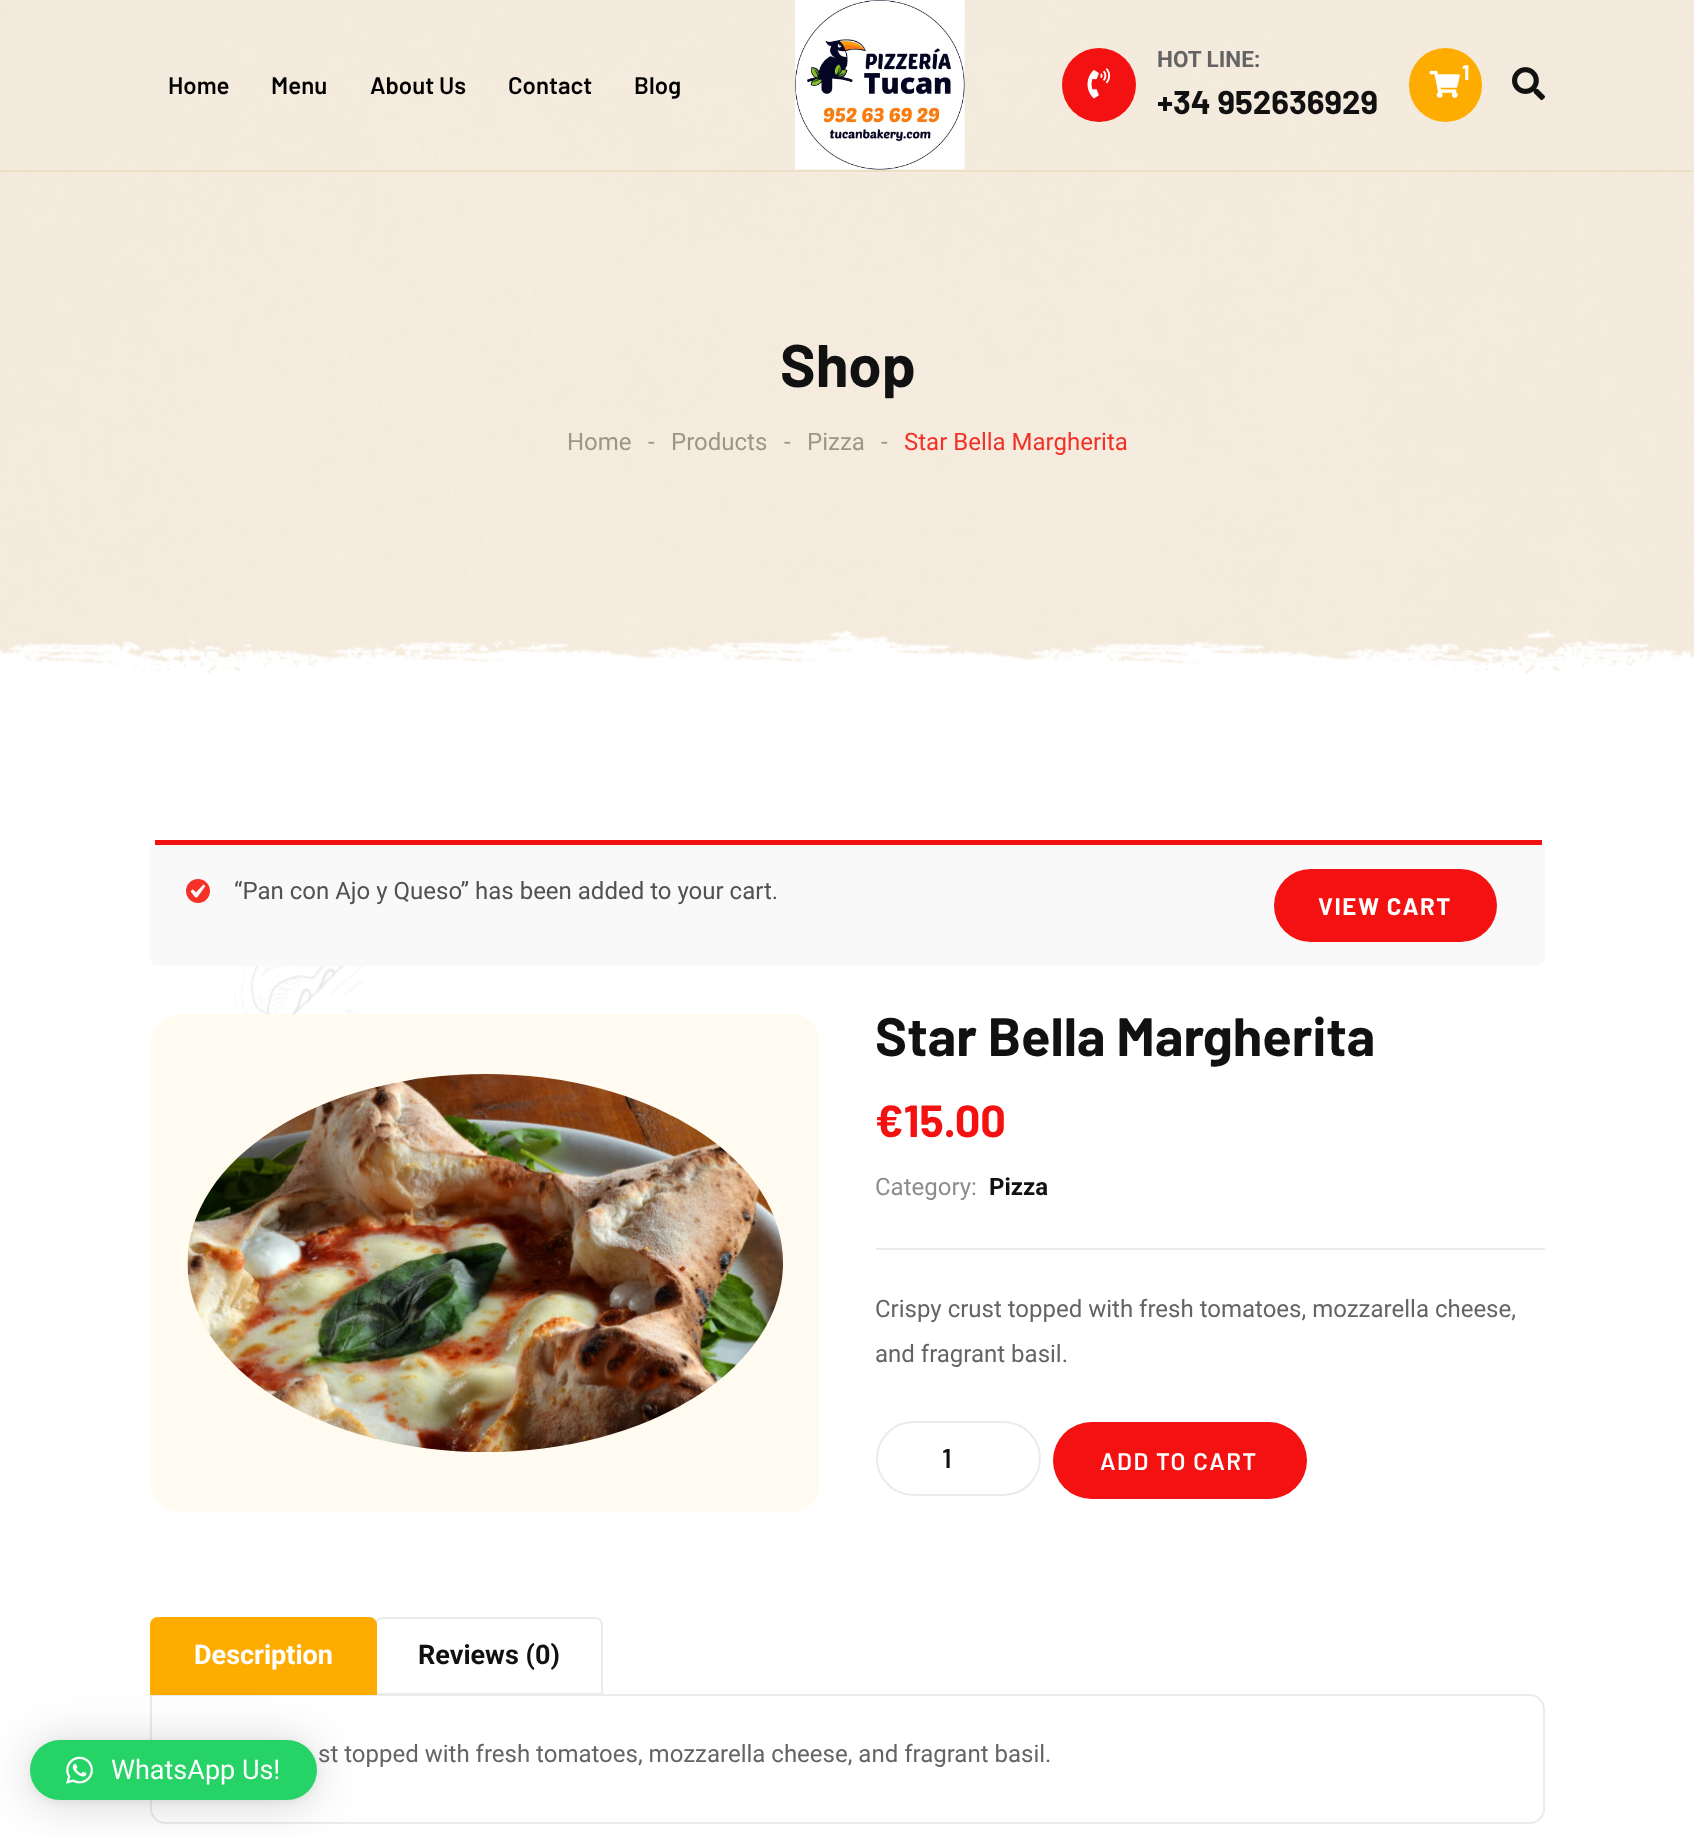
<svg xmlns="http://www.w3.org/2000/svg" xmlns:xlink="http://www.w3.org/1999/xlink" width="1694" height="1836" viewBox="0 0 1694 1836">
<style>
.cls-1{font:600 24px Barlow;fill:#010101}
.cls-2{font:bold 22.5px Roboto;fill:#646464}
.cls-3{font:bold 33px Barlow;fill:#111111}
.cls-4{font:bold 21px Barlow;fill:#ffffff}
.cls-5{font:bold 60px Barlow;fill:#111111}
.cls-6{font:24px Roboto;fill:#9e9586}
.cls-7{font:24px Roboto;fill:#f43127}
.cls-8{font:24px Roboto;fill:#515151}
.cls-9{font:bold 24px Barlow;letter-spacing:1.5px;fill:#ffffff}
.cls-10{font:bold 54px Barlow;fill:#111111}
.cls-11{font:bold 45px Barlow;fill:#f41111}
.cls-12{font:24px Roboto;fill:#8d8c8c}
.cls-13{font:bold 24px Roboto;fill:#111111}
.cls-14{font:24px Roboto;fill:#646464}
.cls-15{font:600 27px Barlow;fill:#111111}
.cls-16{font:600 24px Barlow;letter-spacing:1.5px;fill:#ffffff}
.cls-17{font:bold 27px Roboto;fill:#ffffff}
.cls-18{font:bold 27px Roboto;fill:#111111}
.cls-19{font:27px Roboto;fill:#ffffff}
</style>
<defs>
<clipPath id="clip1"><rect x="150" y="1014" width="669" height="498"/></clipPath>
</defs>
<rect width="100%" height="100%" fill="#ffffff"/>
<image xlink:href="image4.png" x="0" y="0" width="1694" height="674"/>
<rect fill="#eddfc6" x="0" y="170" width="1694" height="2"/>
<image xlink:href="image0.png" x="795" y="0" width="170" height="170"/>
<circle fill="#f41111" cx="1099" cy="85" r="37"/>
<image xlink:href="image1.png" x="1087" y="68" width="24" height="31"/>
<rect fill="#ffac00" x="1409" y="48" width="73" height="74" rx="36.5"/>
<image xlink:href="image2.png" x="1429" y="70" width="31" height="28"/>
<image xlink:href="image3.png" x="1512" y="67" width="33" height="34"/>
<image xlink:href="image5.png" x="234" y="966" width="177" height="48"/>
<rect fill="#f9f9f9" x="150" y="840" width="1395" height="126" rx="8"/>
<rect fill="#f41111" x="155" y="840" width="1387" height="5"/>
<image xlink:href="image6.png" x="186" y="879" width="24" height="24"/>
<rect fill="#f41111" x="1274" y="869" width="223" height="73" rx="36.5"/>
<g clip-path="url(#clip1)">
<rect fill="#fffbf1" x="150" y="1014" width="671" height="498" rx="30"/>
</g>
<image xlink:href="image7.png" x="187" y="1074" width="596" height="378"/>
<rect fill="#ebebeb" x="876" y="1248" width="669" height="2"/>
<rect fill="none" stroke="#ebebeb" stroke-width="2" x="877" y="1422" width="163" height="73" rx="36.5"/>
<rect fill="#f41111" x="1053" y="1422" width="254" height="77" rx="38.5"/>
<path fill="none" stroke="#ebebeb" stroke-width="2" d="M151 1695H1530C1537.5 1695 1544 1701.5 1544 1709V1809C1544 1816.5 1537.5 1823 1530 1823H165C157.5 1823 151 1816.5 151 1809Z"/>
<path fill="none" stroke="#ebebeb" stroke-width="2" d="M383 1618H595C599 1618 602 1621 602 1625V1694H376V1625C376 1621 379 1618 383 1618Z"/>
<path fill="#ffac00" d="M158 1617H369C373.5 1617 377 1620.5 377 1625V1695H150V1625C150 1620.5 153.5 1617 158 1617Z"/>
<rect fill="#000000" fill-opacity="0.16" filter="blur(24px)" x="30" y="1743" width="287" height="60" rx="30"/>
<rect fill="#000000" fill-opacity="0.06" filter="blur(4.5px)" x="30" y="1742" width="287" height="60" rx="30"/>
<rect fill="#25d366" x="30" y="1740" width="287" height="60" rx="30"/>
<image xlink:href="image8.png" x="66" y="1756" width="27" height="28"/>
<text class="cls-1" x="168" y="94">Home</text>
<text class="cls-1" x="271" y="94">Menu</text>
<text class="cls-1" x="370" y="94">About Us</text>
<text class="cls-1" x="508" y="94">Contact</text>
<text class="cls-1" x="634" y="94">Blog</text>
<text class="cls-2" x="1157" y="67">HOT LINE:</text>
<text class="cls-3" x="1157" y="114">+34 952636929</text>
<text class="cls-4" x="1462" y="80">1</text>
<text class="cls-5" x="780" y="387">Shop</text>
<text class="cls-6" x="567" y="450">Home</text>
<text class="cls-6" x="648" y="450">-</text>
<text class="cls-6" x="671" y="450">Products</text>
<text class="cls-6" x="784" y="450">-</text>
<text class="cls-6" x="807" y="450">Pizza</text>
<text class="cls-6" x="881" y="450">-</text>
<text class="cls-7" x="904" y="450">Star Bella Margherita</text>
<text class="cls-8" x="234" y="899">“Pan con Ajo y Queso” has been added to your cart.</text>
<text class="cls-9" x="1318" y="915">VIEW CART</text>
<text class="cls-10" x="875" y="1056">Star Bella Margherita</text>
<text class="cls-11" x="875" y="1137">€15.00</text>
<text class="cls-12" x="875" y="1195">Category:</text>
<text class="cls-13" x="989" y="1195">Pizza</text>
<text class="cls-14"><tspan x="875" y="1317">Crispy crust topped with fresh tomatoes, mozzarella cheese,</tspan><tspan x="875" y="1362">and fragrant basil.</tspan></text>
<text class="cls-15" x="942" y="1468">1</text>
<text class="cls-16" x="1100" y="1470">ADD TO CART</text>
<text class="cls-17" x="194" y="1664">Description</text>
<text class="cls-18" x="418" y="1664">Reviews (0)</text>
<text class="cls-14" x="318" y="1762">st topped with fresh tomatoes, mozzarella cheese, and fragrant basil.</text>
<text class="cls-19" x="111" y="1779">WhatsApp Us!</text>
</svg>
